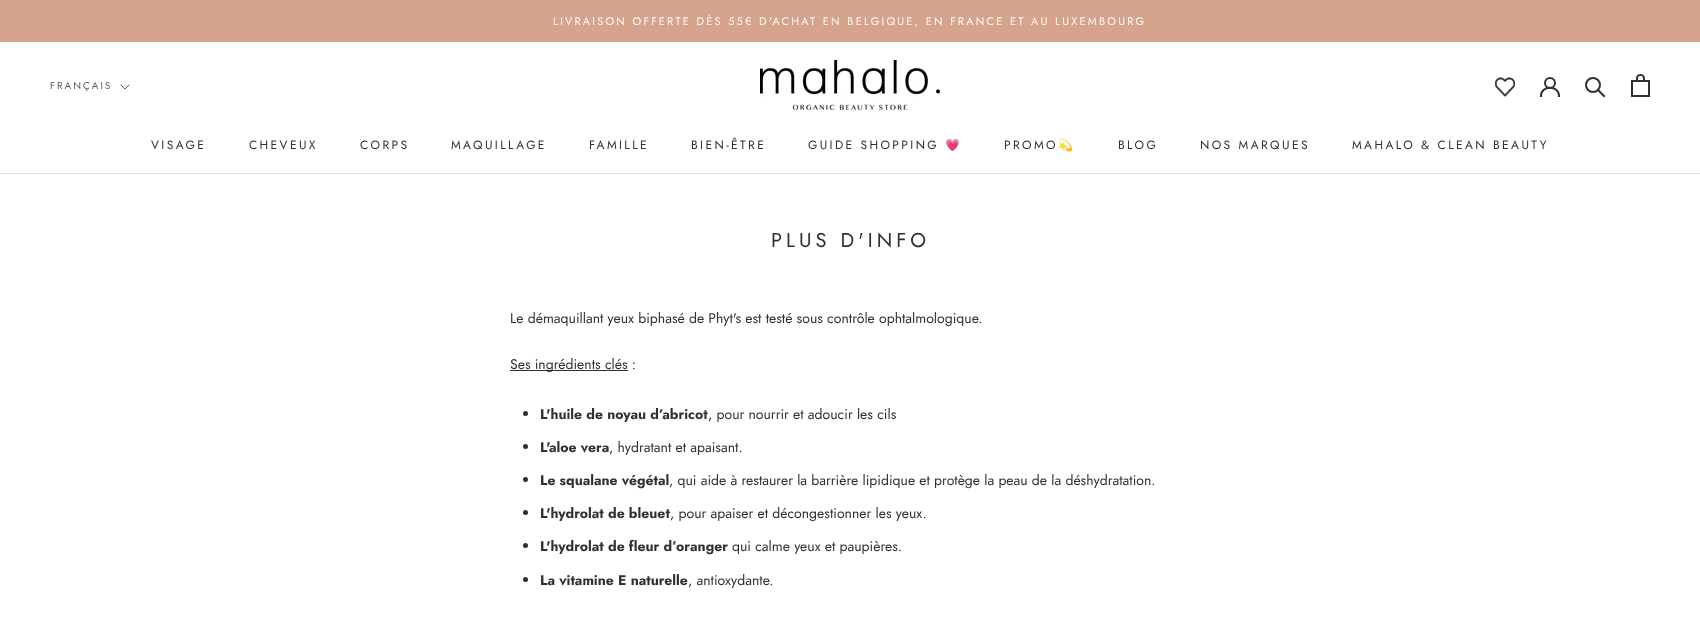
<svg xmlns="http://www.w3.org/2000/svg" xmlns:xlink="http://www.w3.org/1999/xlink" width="1700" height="629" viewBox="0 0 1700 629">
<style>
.cls-1{font:11px Jost;letter-spacing:2.2px;fill:#fafafa}
.cls-2{font:10px Jost;letter-spacing:2px;fill:#595959}
.cls-3{font:12px Jost;letter-spacing:2.4px;fill:#303030}
.cls-4{font:12px Noto Color Emoji;letter-spacing:2.4px;fill:#303030}
.cls-5{font:20px Jost;letter-spacing:4px;fill:#303030}
.cls-6{font:14px Jost;fill:#303030}
.cls-7{font:bold 14px Jost;fill:#303030}
</style>
<rect width="100%" height="100%" fill="#ffffff"/>
<rect fill="#d6a38d" x="0" y="0" width="1700" height="42"/>
<rect fill="#e0e0e0" x="0" y="173" width="1700" height="1"/>
<image xlink:href="image0.png" x="760" y="60" width="180" height="50"/>
<image xlink:href="image1.png" x="1495" y="77" width="20" height="20"/>
<path fill="none" stroke="#303030" stroke-width="2" stroke-linecap="square" d="M1541 96C1541 85 1559 85 1559 96"/>
<circle fill="none" stroke="#303030" stroke-width="2" cx="1550" cy="83" r="5"/>
<path fill="none" stroke="#303030" stroke-width="2" stroke-linecap="square" d="M1604 96L1598.5 90.5"/>
<circle fill="none" stroke="#303030" stroke-width="2" cx="1593" cy="85" r="7"/>
<image xlink:href="image2.png" x="1631" y="74" width="19" height="23"/>
<path fill="none" stroke="#595959" stroke-linecap="square" d="M129 85L125 89L121 85"/>
<rect fill="#303030" x="510" y="370" width="118" height="1"/>
<circle fill="#303030" cx="525.5" cy="413.5" r="2.5"/>
<circle fill="#303030" cx="525.5" cy="446.5" r="2.5"/>
<circle fill="#303030" cx="525.5" cy="479.5" r="2.5"/>
<circle fill="#303030" cx="525.5" cy="512.5" r="2.5"/>
<circle fill="#303030" cx="525.5" cy="545.5" r="2.5"/>
<circle fill="#303030" cx="525.5" cy="579.5" r="2.5"/>
<text class="cls-1" x="553" y="25">LIVRAISON OFFERTE DÈS 55€ D'ACHAT EN BELGIQUE, EN FRANCE ET AU LUXEMBOURG</text>
<text class="cls-2" x="50" y="89">FRANÇAIS</text>
<text class="cls-3" x="151" y="149">VISAGE</text>
<text class="cls-3" x="249" y="149">CHEVEUX</text>
<text class="cls-3" x="360" y="149">CORPS</text>
<text class="cls-3" x="451" y="149">MAQUILLAGE</text>
<text class="cls-3" x="589" y="149">FAMILLE</text>
<text class="cls-3" x="691" y="149">BIEN-ÊTRE</text>
<text class="cls-3" x="808" y="149">GUIDE SHOPPING</text>
<text class="cls-4" x="945" y="149">💗</text>
<text class="cls-3" x="1004" y="149">PROMO</text>
<text class="cls-4" x="1058" y="149">💫</text>
<text class="cls-3" x="1118" y="149">BLOG</text>
<text class="cls-3" x="1200" y="149">NOS MARQUES</text>
<text class="cls-3" x="1352" y="149">MAHALO &amp; CLEAN BEAUTY</text>
<text class="cls-5" x="771" y="247">PLUS D'INFO</text>
<text class="cls-6" x="510" y="323">Le démaquillant yeux biphasé de Phyt's est testé sous contrôle ophtalmologique.</text>
<text class="cls-6" x="510" y="369">Ses ingrédients clés :</text>
<text class="cls-7" x="540" y="419">L'huile de noyau d’abricot</text>
<text class="cls-6" x="708" y="419">, pour nourrir et adoucir les cils</text>
<text class="cls-7" x="540" y="452">L'aloe vera</text>
<text class="cls-6" x="609" y="452">, hydratant et apaisant.</text>
<text class="cls-7" x="540" y="485">Le squalane végétal</text>
<text class="cls-6" x="669" y="485">, qui aide à restaurer la barrière lipidique et protège la peau de la déshydratation.</text>
<text class="cls-7" x="540" y="518">L'hydrolat de bleuet</text>
<text class="cls-6" x="670" y="518">, pour apaiser et décongestionner les yeux.</text>
<text class="cls-7" x="540" y="551">L'hydrolat de fleur d’oranger</text>
<text class="cls-6" x="732" y="551">qui calme yeux et paupières.</text>
<text class="cls-7" x="540" y="585">La vitamine E naturelle</text>
<text class="cls-6" x="688" y="585">, antioxydante.</text>
</svg>
